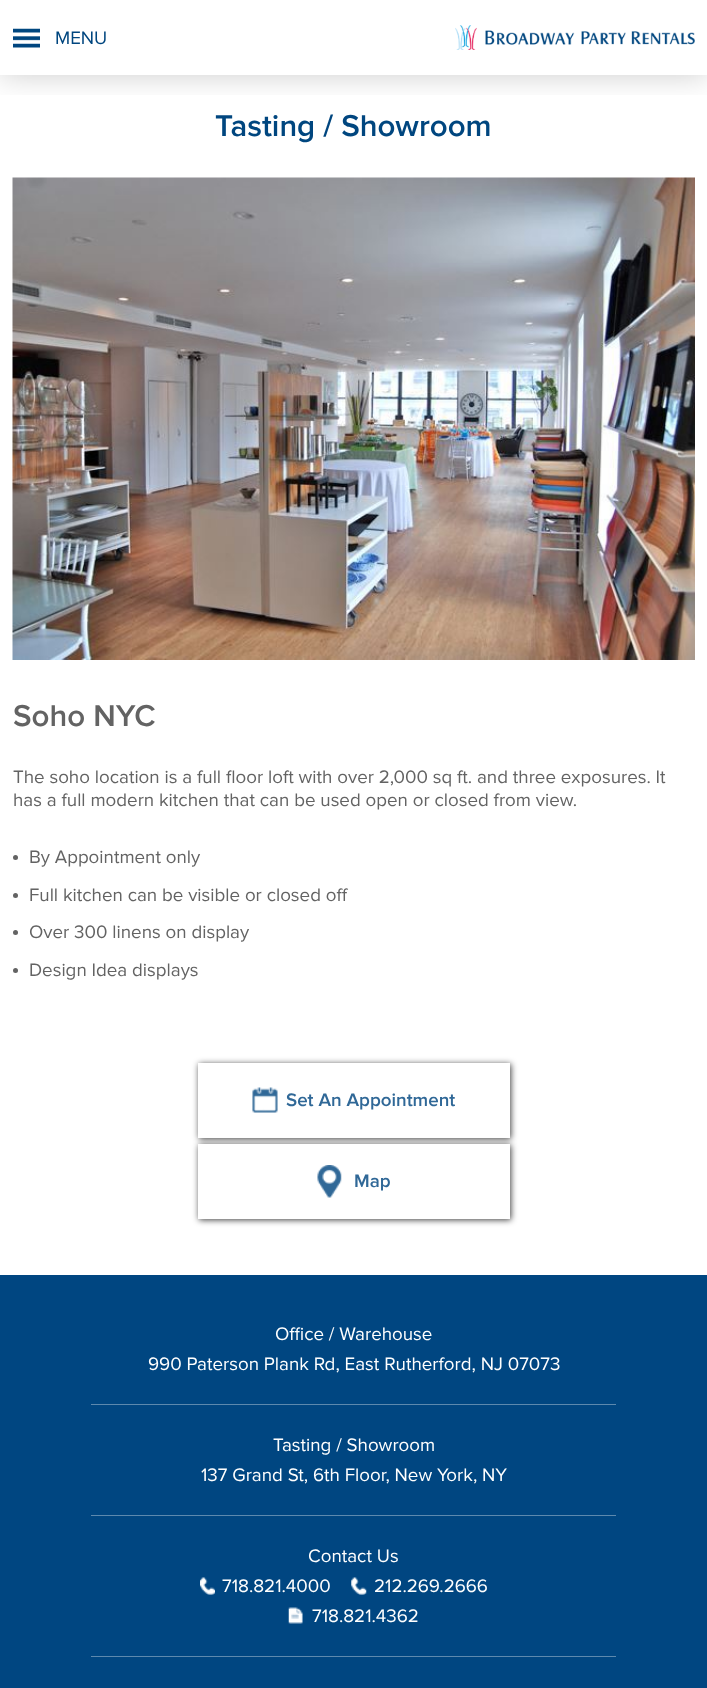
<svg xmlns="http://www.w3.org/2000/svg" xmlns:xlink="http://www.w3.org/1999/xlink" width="707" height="1688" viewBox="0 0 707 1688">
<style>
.cls-1{font:18.75px Proxima Nova;fill:#00467f}
.cls-2{font:600 31.25px Proxima Nova;fill:#00467f}
.cls-3{font:600 31.25px Proxima Nova;fill:#636363}
.cls-4{font:18.75px Proxima Nova;fill:#636363}
.cls-5{font:600 18.75px Proxima Nova;fill:#306897}
.cls-6{font:18.75px Proxima Nova;fill:#ffffff}
</style>
<defs>
<clipPath id="clip1"><rect x="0" y="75" width="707" height="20"/></clipPath>
</defs>
<rect width="100%" height="100%" fill="#ffffff"/>
<g clip-path="url(#clip1)">
<rect fill="#000000" fill-opacity="0.2" filter="blur(15.5px)" x="0" y="0" width="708" height="75"/>
</g>
<image xlink:href="image0.png" x="13" y="28" width="27" height="20"/>
<image xlink:href="image1.png" x="455" y="25" width="240" height="25"/>
<image xlink:href="image2.png" x="12" y="177" width="683" height="483"/>
<circle fill="#636363" cx="15.5" cy="857.5" r="2.5"/>
<circle fill="#636363" cx="15.5" cy="895.5" r="2.5"/>
<circle fill="#636363" cx="15.5" cy="932.5" r="2.5"/>
<circle fill="#636363" cx="15.5" cy="970.5" r="2.5"/>
<rect fill="#000000" fill-opacity="0.75" filter="blur(3px)" x="199" y="1064" width="312" height="75"/>
<rect fill="#ffffff" x="198" y="1063" width="312" height="75"/>
<image xlink:href="image3.png" x="252" y="1087" width="26" height="26"/>
<rect fill="#000000" fill-opacity="0.75" filter="blur(3px)" x="199" y="1145" width="312" height="75"/>
<rect fill="#ffffff" x="198" y="1144" width="312" height="75"/>
<image xlink:href="image4.png" x="317" y="1165" width="25" height="33"/>
<rect fill="#004681" x="0" y="1275" width="707" height="413"/>
<rect fill="#5d89ae" x="91" y="1404" width="525" height="1"/>
<rect fill="#5d89ae" x="91" y="1515" width="525" height="1"/>
<image xlink:href="image5.png" x="200" y="1577" width="15" height="18"/>
<image xlink:href="image6.png" x="351" y="1577" width="16" height="18"/>
<image xlink:href="image7.png" x="288" y="1607" width="15" height="17"/>
<rect fill="#5d89ae" x="91" y="1656" width="525" height="1"/>
<text class="cls-1" x="55" y="44">MENU</text>
<text class="cls-2" x="215" y="136">Tasting / Showroom</text>
<text class="cls-3" x="13" y="726">Soho NYC</text>
<text class="cls-4"><tspan x="13" y="783">The soho location is a full floor loft with over 2,000 sq ft. and three exposures. It</tspan><tspan x="13" y="806">has a full modern kitchen that can be used open or closed from view.</tspan></text>
<text class="cls-4" x="29" y="863">By Appointment only</text>
<text class="cls-4"><tspan x="29" y="901">Full kitchen can be visible or closed off</tspan><tspan x="29" y="938">Over 300 linens on display</tspan></text>
<text class="cls-4" x="29" y="976">Design Idea displays</text>
<text class="cls-5" x="286" y="1106">Set An Appointment</text>
<text class="cls-5" x="354" y="1187">Map</text>
<text class="cls-6" x="275" y="1340">Office / Warehouse</text>
<text class="cls-6" x="148" y="1370">990 Paterson Plank Rd, East Rutherford, NJ 07073</text>
<text class="cls-6" x="273" y="1451">Tasting / Showroom</text>
<text class="cls-6" x="201" y="1481">137 Grand St, 6th Floor, New York, NY</text>
<text class="cls-6" x="308" y="1562">Contact Us</text>
<text class="cls-6" x="222" y="1592">718.821.4000</text>
<text class="cls-6" x="374" y="1592">212.269.2666</text>
<text class="cls-6" x="312" y="1622">718.821.4362</text>
</svg>
